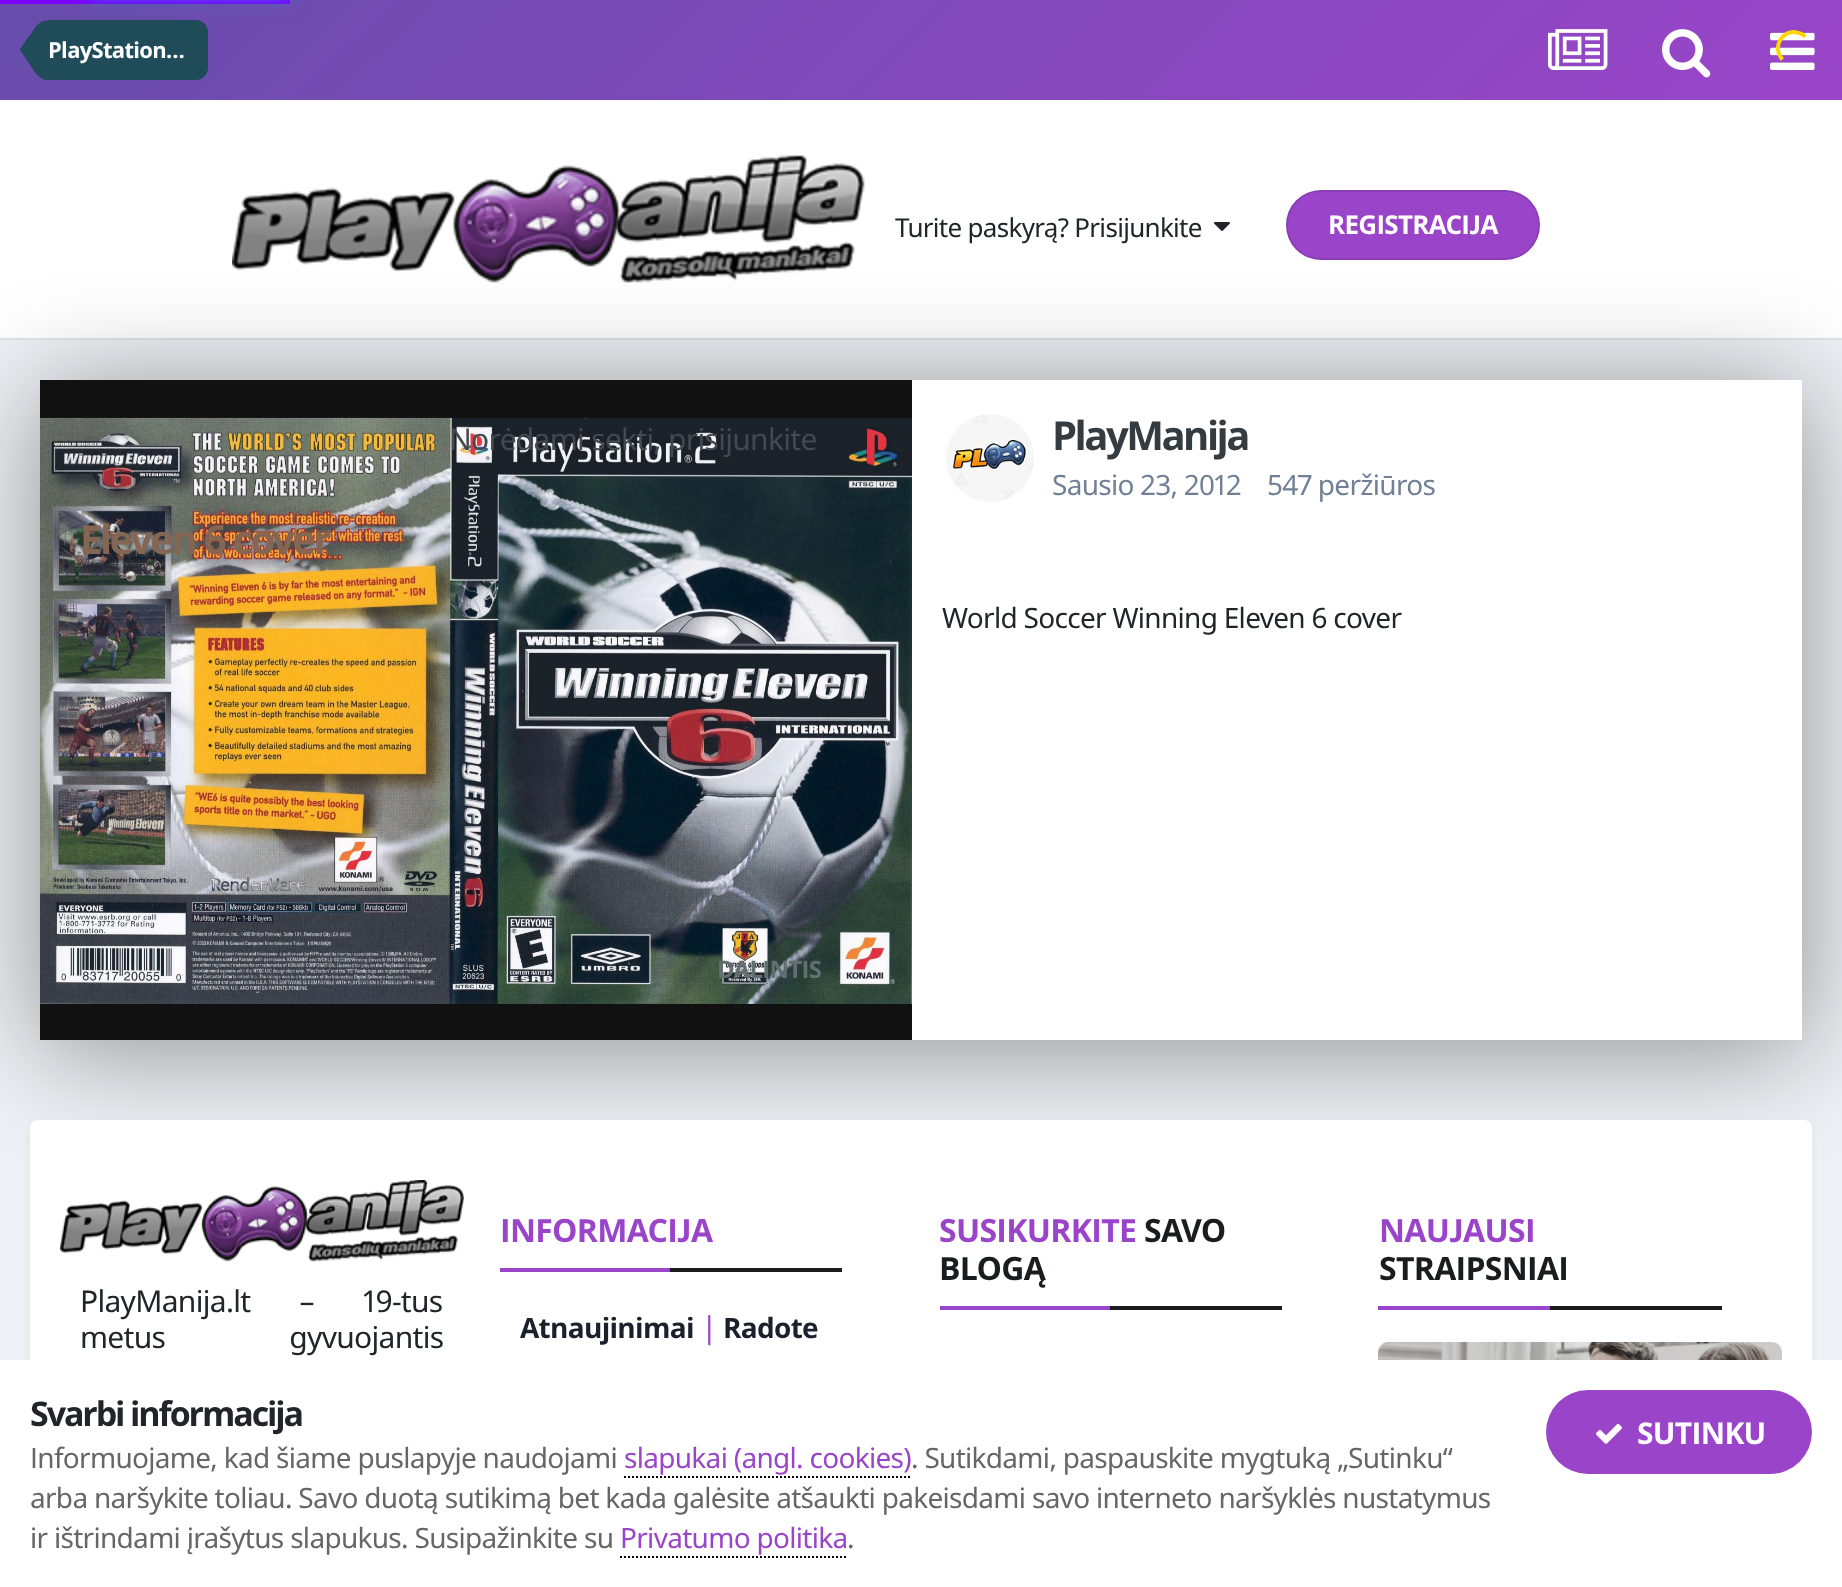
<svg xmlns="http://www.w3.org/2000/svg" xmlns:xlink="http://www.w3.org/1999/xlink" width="1842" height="1587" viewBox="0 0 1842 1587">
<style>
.cls-1{font:bold 22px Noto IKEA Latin;letter-spacing:-0.7px;fill:#ffffff}
.cls-2{font:26px Noto IKEA Latin;letter-spacing:-0.7px;fill:#212529}
.cls-3{font:bold 26px Noto IKEA Latin;letter-spacing:-0.7px;fill:#ffffff}
.cls-4{font:30px Noto IKEA Latin;letter-spacing:-0.7px;fill:#444950}
.cls-5{font:bold 40px Noto IKEA Latin;letter-spacing:-2.5px;fill:#846653}
.cls-6{font:bold 24px Noto IKEA Latin;letter-spacing:-0.7px;fill:#626f6f}
.cls-7{font:bold 40px Noto IKEA Latin;letter-spacing:-2.5px;fill:#353c41}
.cls-8{font:28px Noto IKEA Latin;letter-spacing:-0.7px;fill:#718096}
.cls-9{font:28px Noto IKEA Latin;letter-spacing:-0.7px;fill:#212529}
.cls-10{font:bold 32px Noto IKEA Latin;letter-spacing:-0.7px;fill:#9a45c9}
.cls-11{font:bold 28px Noto IKEA Latin;letter-spacing:-0.7px;fill:#1a202c}
.cls-12{font:30px Noto IKEA Latin;letter-spacing:-0.7px;fill:#9a45c9}
.cls-13{font:bold 32px Noto IKEA Latin;letter-spacing:-0.7px;fill:#1a1d1f}
.cls-14{font:30px Noto IKEA Latin;letter-spacing:-0.7px;fill:#212529}
.cls-15{font:bold 34px Noto IKEA Latin;letter-spacing:-2.1px;fill:#212529}
.cls-16{font:28px Noto IKEA Latin;letter-spacing:-0.7px;fill:#666666}
.cls-17{font:28px Noto IKEA Latin;letter-spacing:-0.7px;fill:#9a45c9}
.cls-18{font:bold 30px Noto IKEA Latin;letter-spacing:-0.7px;fill:#ffffff}
</style>
<defs>
<linearGradient id="g1" gradientUnits="userSpaceOnUse" x1="1390" y1="536" x2="452" y2="-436"><stop offset="0" stop-color="#9a45c9"/><stop offset="1" stop-color="#674dab"/></linearGradient>
</defs>
<rect width="100%" height="100%" fill="#edf0f4"/>
<rect fill="url(#g1)" x="0" y="0" width="1842" height="100"/>
<rect fill="#7c00ff" x="0" y="0" width="290" height="4"/>
<rect fill="#2299dd" filter="blur(5px)" x="90" y="-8" width="200" height="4"/>
<path fill="#204c5a" d="M48 20H196C202.5 20 208 25.5 208 32V68C208 74.5 202.5 80 196 80H48Z"/>
<rect fill="#2299dd" filter="blur(10px)" x="90" y="-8" width="200" height="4"/>
<image xlink:href="image2.png" x="1770" y="32" width="45" height="38"/>
<path fill="none" stroke="#ffd600" stroke-width="4" d="M1782.5 59.5C1771.5 48 1782 29 1797 32.5C1800 33 1803 34.5 1805.5 36.5"/>
<path fill="#204c5a" d="M48 50V80.5C43.5 80 38.5 77.5 34 71L20 50ZM48 50H20C20 48.5 31 33.5 32.5 31.5L37 25L38.5 24C41 21.5 44.5 20 48 20.5Z"/>
<image xlink:href="image0.png" x="1548" y="29" width="60" height="41"/>
<image xlink:href="image1.png" x="1662" y="29" width="49" height="49"/>
<rect fill="#ffffff" x="0" y="100" width="1842" height="238"/>
<rect fill="#dee2e6" x="0" y="338" width="1842" height="2"/>
<image xlink:href="image3.png" x="232" y="155" width="633" height="128"/>
<image xlink:href="image4.png" x="1214" y="222" width="16" height="9"/>
<rect fill="#9a45c9" x="1286" y="190" width="254" height="70" rx="35"/>
<rect fill="none" stroke="#000000" stroke-opacity="0.1" stroke-width="2" x="1287" y="191" width="252" height="68" rx="34"/>
<rect fill="#000000" fill-opacity="0.4" filter="blur(55px)" x="40" y="390" width="1762" height="660"/>
<rect fill="#111111" x="40" y="380" width="872" height="660"/>
<image xlink:href="image5.png" x="40" y="417" width="872" height="587"/>
<rect fill="#ffffff" x="912" y="380" width="890" height="660"/>
<image xlink:href="image6.png" x="946" y="414" width="88" height="88"/>
<rect fill="#2d3748" fill-opacity="0.1" filter="blur(4px)" x="32" y="1126" width="1778" height="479" rx="6"/>
<rect fill="#ffffff" x="30" y="1120" width="1782" height="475" rx="8"/>
<rect fill="#1a1d1f" x="670" y="1268" width="172" height="4"/>
<rect fill="#9a45c9" x="500" y="1268" width="170" height="4"/>
<rect fill="#1a1d1f" x="1110" y="1306" width="172" height="4"/>
<rect fill="#9a45c9" x="940" y="1306" width="170" height="4"/>
<rect fill="#1a1d1f" x="1550" y="1306" width="172" height="4"/>
<rect fill="#9a45c9" x="1378" y="1306" width="172" height="4"/>
<image xlink:href="image7.png" x="1378" y="1342" width="404" height="18"/>
<image xlink:href="image8.png" x="60" y="1180" width="404" height="82"/>
<rect fill="#ffffff" x="0" y="1360" width="1842" height="227"/>
<path fill="none" stroke="#000000" stroke-width="2" stroke-dasharray="2 2" d="M624 1477H910"/>
<path fill="none" stroke="#000000" stroke-width="2" stroke-dasharray="2 2" d="M620 1557H848"/>
<rect fill="#9a45c9" x="1546" y="1390" width="266" height="84" rx="42"/>
<image xlink:href="image9.png" x="1596" y="1423" width="26" height="21"/>
<text class="cls-1" x="48" y="58">PlayStation…</text>
<text class="cls-2" x="895" y="237">Turite paskyrą? Prisijunkite</text>
<text class="cls-3" x="1328" y="234">REGISTRACIJA</text>
<text class="cls-4" x="449" y="450">Norėdami sekti, prisijunkite</text>
<text class="cls-5" x="80" y="554">Eleven 6 cover</text>
<text class="cls-6" x="717" y="978">DALINTIS</text>
<text class="cls-7" x="1052" y="450">PlayManija</text>
<text class="cls-8" x="1052" y="495">Sausio 23, 2012</text>
<text class="cls-8" x="1267" y="495">547 peržiūros</text>
<text class="cls-9" x="942" y="628">World Soccer Winning Eleven 6 cover</text>
<text class="cls-10" x="500" y="1242">INFORMACIJA</text>
<text class="cls-11" x="520" y="1338">Atnaujinimai</text>
<text class="cls-12" x="701" y="1338">|</text>
<text class="cls-11" x="723" y="1338">Radote</text>
<text class="cls-10" x="939" y="1242">SUSIKURKITE</text>
<text class="cls-13" x="1144" y="1242">SAVO</text>
<text class="cls-13" x="939" y="1280">BLOGĄ</text>
<text class="cls-10" x="1379" y="1242">NAUJAUSI</text>
<text class="cls-13" x="1379" y="1280">STRAIPSNIAI</text>
<text class="cls-14"><tspan x="80" y="1312" word-spacing="42">PlayManija.lt – 19-tus</tspan><tspan x="80" y="1348" word-spacing="117">metus gyvuojantis</tspan></text>
<text class="cls-15" x="30" y="1426">Svarbi informacija</text>
<text class="cls-16" x="30" y="1468">Informuojame, kad šiame puslapyje naudojami</text>
<text class="cls-17" x="624" y="1468">slapukai (angl. cookies)</text>
<text class="cls-16" x="911" y="1468">. Sutikdami, paspauskite mygtuką „Sutinku“</text>
<text class="cls-16"><tspan x="30" y="1508">arba naršykite toliau. Savo duotą sutikimą bet kada galėsite atšaukti pakeisdami savo interneto naršyklės nustatymus</tspan><tspan x="30" y="1548">ir ištrindami įrašytus slapukus. Susipažinkite su</tspan></text>
<text class="cls-17" x="620" y="1548">Privatumo politika</text>
<text class="cls-16" x="847" y="1548">.</text>
<text class="cls-18" x="1637" y="1444">SUTINKU</text>
</svg>
